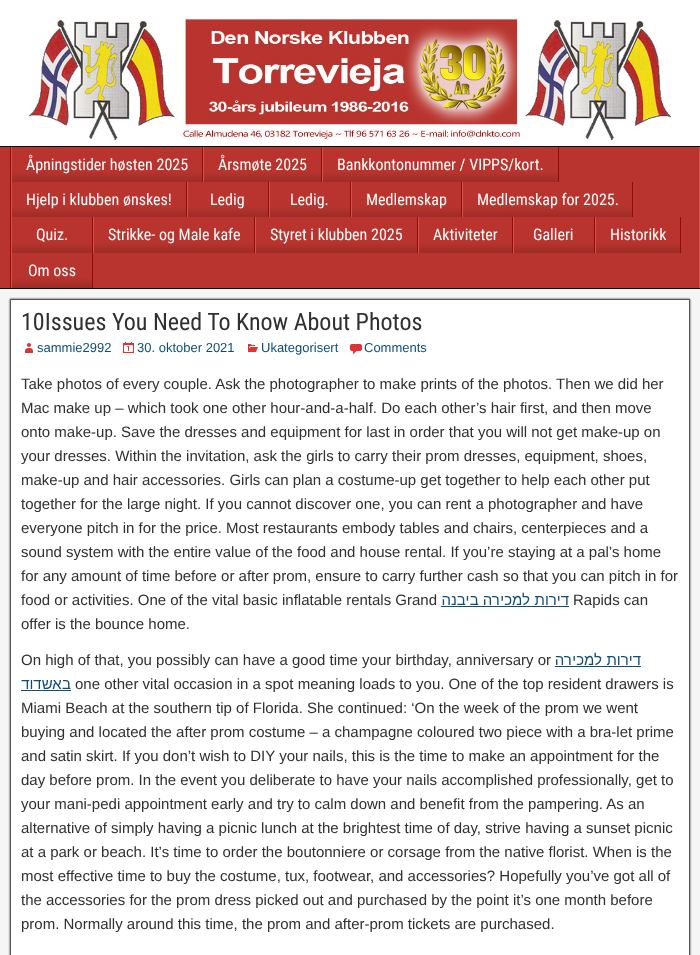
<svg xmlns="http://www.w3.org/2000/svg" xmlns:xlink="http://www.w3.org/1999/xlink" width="700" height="955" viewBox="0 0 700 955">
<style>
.cls-1{font:16px Roboto Condensed;fill:#ffffff}
.cls-2{font:24px Roboto Condensed;fill:#303030}
.cls-3{font:13px Liberation Sans;fill:#0e4d7a}
.cls-4{font:15px Arimo;fill:#303030}
.cls-5{font:15px Arimo;direction:rtl;fill:#0e4d7a}
</style>
<defs>
<linearGradient id="g1" gradientUnits="userSpaceOnUse" x1="107" y1="147" x2="107" y2="182"><stop offset="0.7" stop-color="#b9342e"/><stop offset="1" stop-color="#9d2c27"/></linearGradient>
<linearGradient id="g2" gradientUnits="userSpaceOnUse" x1="263" y1="147" x2="263" y2="182"><stop offset="0.7" stop-color="#b9342e"/><stop offset="1" stop-color="#9d2c27"/></linearGradient>
<linearGradient id="g3" gradientUnits="userSpaceOnUse" x1="441" y1="147" x2="441" y2="182"><stop offset="0.7" stop-color="#b9342e"/><stop offset="1" stop-color="#9d2c27"/></linearGradient>
<linearGradient id="g4" gradientUnits="userSpaceOnUse" x1="99" y1="182" x2="99" y2="217"><stop offset="0.7" stop-color="#b9342e"/><stop offset="1" stop-color="#9d2c27"/></linearGradient>
<linearGradient id="g5" gradientUnits="userSpaceOnUse" x1="228" y1="182" x2="228" y2="217"><stop offset="0.7" stop-color="#b9342e"/><stop offset="1" stop-color="#9d2c27"/></linearGradient>
<linearGradient id="g6" gradientUnits="userSpaceOnUse" x1="310" y1="182" x2="310" y2="217"><stop offset="0.7" stop-color="#b9342e"/><stop offset="1" stop-color="#9d2c27"/></linearGradient>
<linearGradient id="g7" gradientUnits="userSpaceOnUse" x1="407" y1="182" x2="407" y2="217"><stop offset="0.7" stop-color="#b9342e"/><stop offset="1" stop-color="#9d2c27"/></linearGradient>
<linearGradient id="g8" gradientUnits="userSpaceOnUse" x1="548" y1="182" x2="548" y2="217"><stop offset="0.7" stop-color="#b9342e"/><stop offset="1" stop-color="#9d2c27"/></linearGradient>
<linearGradient id="g9" gradientUnits="userSpaceOnUse" x1="52" y1="217" x2="52" y2="253"><stop offset="0.7" stop-color="#b9342e"/><stop offset="1" stop-color="#9d2c27"/></linearGradient>
<linearGradient id="g10" gradientUnits="userSpaceOnUse" x1="174" y1="217" x2="174" y2="253"><stop offset="0.7" stop-color="#b9342e"/><stop offset="1" stop-color="#9d2c27"/></linearGradient>
<linearGradient id="g11" gradientUnits="userSpaceOnUse" x1="337" y1="217" x2="337" y2="253"><stop offset="0.7" stop-color="#b9342e"/><stop offset="1" stop-color="#9d2c27"/></linearGradient>
<linearGradient id="g12" gradientUnits="userSpaceOnUse" x1="466" y1="217" x2="466" y2="253"><stop offset="0.7" stop-color="#b9342e"/><stop offset="1" stop-color="#9d2c27"/></linearGradient>
<linearGradient id="g13" gradientUnits="userSpaceOnUse" x1="554" y1="217" x2="554" y2="253"><stop offset="0.7" stop-color="#b9342e"/><stop offset="1" stop-color="#9d2c27"/></linearGradient>
<linearGradient id="g14" gradientUnits="userSpaceOnUse" x1="638" y1="217" x2="638" y2="253"><stop offset="0.7" stop-color="#b9342e"/><stop offset="1" stop-color="#9d2c27"/></linearGradient>
<linearGradient id="g15" gradientUnits="userSpaceOnUse" x1="52" y1="253" x2="52" y2="288"><stop offset="0.7" stop-color="#b9342e"/><stop offset="1" stop-color="#9d2c27"/></linearGradient>
</defs>
<rect width="100%" height="100%" fill="#000000"/>
<image xlink:href="image0.png" x="0" y="0" width="700" height="146"/>
<rect fill="#b9342e" x="0" y="147" width="699" height="141"/>
<rect fill="#d7524c" x="699" y="147" width="1" height="141"/>
<rect fill="#910c06" x="10" y="147" width="1" height="141"/>
<rect fill="url(#g1)" x="12" y="172" width="190" height="10"/>
<rect fill="#910c06" x="202" y="147" width="1" height="35"/>
<rect fill="#d7524c" x="11" y="147" width="1" height="141"/>
<rect fill="url(#g2)" x="204" y="172" width="117" height="10"/>
<rect fill="#910c06" x="321" y="147" width="1" height="35"/>
<rect fill="#d7524c" x="203" y="147" width="1" height="35"/>
<rect fill="url(#g3)" x="323" y="172" width="235" height="10"/>
<rect fill="#910c06" x="558" y="147" width="1" height="35"/>
<rect fill="#d7524c" x="322" y="147" width="1" height="35"/>
<rect fill="url(#g4)" x="12" y="207" width="174" height="10"/>
<rect fill="#910c06" x="186" y="182" width="1" height="35"/>
<rect fill="url(#g5)" x="188" y="207" width="80" height="10"/>
<rect fill="#910c06" x="268" y="182" width="1" height="35"/>
<rect fill="#d7524c" x="187" y="182" width="1" height="35"/>
<rect fill="url(#g6)" x="270" y="207" width="80" height="10"/>
<rect fill="#910c06" x="350" y="182" width="1" height="35"/>
<rect fill="#d7524c" x="269" y="182" width="1" height="35"/>
<rect fill="url(#g7)" x="352" y="207" width="109" height="10"/>
<rect fill="#910c06" x="461" y="182" width="1" height="35"/>
<rect fill="#d7524c" x="351" y="182" width="1" height="35"/>
<rect fill="url(#g8)" x="463" y="207" width="169" height="10"/>
<rect fill="#910c06" x="632" y="182" width="1" height="35"/>
<rect fill="#d7524c" x="462" y="182" width="1" height="35"/>
<rect fill="url(#g9)" x="12" y="243" width="80" height="10"/>
<rect fill="#910c06" x="92" y="217" width="1" height="71"/>
<rect fill="url(#g10)" x="94" y="243" width="160" height="10"/>
<rect fill="#910c06" x="254" y="217" width="1" height="36"/>
<rect fill="#d7524c" x="93" y="217" width="1" height="36"/>
<rect fill="url(#g11)" x="256" y="243" width="161" height="10"/>
<rect fill="#910c06" x="417" y="217" width="1" height="36"/>
<rect fill="#d7524c" x="255" y="217" width="1" height="36"/>
<rect fill="url(#g12)" x="419" y="243" width="93" height="10"/>
<rect fill="#910c06" x="512" y="217" width="1" height="36"/>
<rect fill="#d7524c" x="418" y="217" width="1" height="36"/>
<rect fill="url(#g13)" x="514" y="243" width="80" height="10"/>
<rect fill="#910c06" x="594" y="217" width="1" height="36"/>
<rect fill="#d7524c" x="513" y="217" width="1" height="36"/>
<rect fill="url(#g14)" x="596" y="243" width="84" height="10"/>
<rect fill="#910c06" x="680" y="217" width="1" height="36"/>
<rect fill="#d7524c" x="595" y="217" width="1" height="36"/>
<rect fill="url(#g15)" x="12" y="278" width="80" height="10"/>
<rect fill="#f5f5f5" x="0" y="289" width="700" height="666"/>
<rect fill="#333333" filter="blur(1px)" x="10" y="299" width="680" height="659"/>
<rect fill="#ffffff" stroke="#555555" x="10.5" y="299.5" width="679" height="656"/>
<image xlink:href="image1.png" x="25" y="343" width="8" height="10"/>
<image xlink:href="image2.png" x="123" y="342" width="11" height="11"/>
<image xlink:href="image3.png" x="248" y="344" width="10" height="8"/>
<image xlink:href="image4.png" x="350" y="344" width="12" height="11"/>
<rect fill="#0e4d7a" x="441" y="606" width="128" height="1"/>
<rect fill="#0e4d7a" x="555" y="666" width="86" height="1"/>
<rect fill="#0e4d7a" x="21" y="690" width="50" height="1"/>
<text class="cls-1" x="26" y="170">Åpningstider høsten 2025</text>
<text class="cls-1" x="218" y="170">Årsmøte 2025</text>
<text class="cls-1" x="337" y="170">Bankkontonummer / VIPPS/kort.</text>
<text class="cls-1" x="26" y="205">Hjelp i klubben ønskes!</text>
<text class="cls-1" x="210" y="205">Ledig</text>
<text class="cls-1" x="290" y="205">Ledig.</text>
<text class="cls-1" x="366" y="205">Medlemskap</text>
<text class="cls-1" x="477" y="205">Medlemskap for 2025.</text>
<text class="cls-1" x="36" y="240">Quiz.</text>
<text class="cls-1" x="108" y="240">Strikke- og Male kafe</text>
<text class="cls-1" x="270" y="240">Styret i klubben 2025</text>
<text class="cls-1" x="433" y="240">Aktiviteter</text>
<text class="cls-1" x="533" y="240">Galleri</text>
<text class="cls-1" x="610" y="240">Historikk</text>
<text class="cls-1" x="28" y="276">Om oss</text>
<text class="cls-2" x="21" y="330">10Issues You Need To Know About Photos</text>
<text class="cls-3" x="37" y="352">sammie2992</text>
<text class="cls-3" x="137" y="352">30. oktober 2021</text>
<text class="cls-3" x="261" y="352">Ukategorisert</text>
<text class="cls-3" x="364" y="352">Comments</text>
<text class="cls-4"><tspan x="21" y="389">Take photos of every couple. Ask the photographer to make prints of the photos. Then we did her</tspan><tspan x="21" y="413">Mac make up – which took one other hour-and-a-half. Do each other’s hair first, and then move</tspan><tspan x="21" y="437">onto make-up. Save the dresses and equipment for last in order that you will not get make-up on</tspan><tspan x="21" y="461">your dresses. Within the invitation, ask the girls to carry their prom dresses, equipment, shoes,</tspan><tspan x="21" y="485">make-up and hair accessories. Girls can plan a costume-up get together to help each other put</tspan><tspan x="21" y="509">together for the large night. If you cannot discover one, you can rent a photographer and have</tspan><tspan x="21" y="533">everyone pitch in for the price. Most restaurants embody tables and chairs, centerpieces and a</tspan><tspan x="21" y="557">sound system with the entire value of the food and house rental. If you’re staying at a pal’s home</tspan><tspan x="21" y="581">for any amount of time before or after prom, ensure to carry further cash so that you can pitch in for</tspan><tspan x="21" y="605">food or activities. One of the vital basic inflatable rentals Grand</tspan></text>
<text class="cls-5" x="569" y="605">דירות למכירה ביבנה</text>
<text class="cls-4" x="573" y="605">Rapids can</text>
<text class="cls-4" x="21" y="629">offer is the bounce home.</text>
<text class="cls-4" x="21" y="665">On high of that, you possibly can have a good time your birthday, anniversary or</text>
<text class="cls-5" x="641" y="665">דירות למכירה</text>
<text class="cls-5" x="71" y="689">באשדוד</text>
<text class="cls-4" x="75" y="689">one other vital occasion in a spot meaning loads to you. One of the top resident drawers is</text>
<text class="cls-4"><tspan x="21" y="713">Miami Beach at the southern tip of Florida. She continued: ‘On the week of the prom we went</tspan><tspan x="21" y="737">buying and located the after prom costume – a champagne coloured two piece with a bra-let prime</tspan><tspan x="21" y="761">and satin skirt. If you don’t wish to DIY your nails, this is the time to make an appointment for the</tspan><tspan x="21" y="785">day before prom. In the event you deliberate to have your nails accomplished professionally, get to</tspan><tspan x="21" y="809">your mani-pedi appointment early and try to calm down and benefit from the pampering. As an</tspan><tspan x="21" y="833">alternative of simply having a picnic lunch at the brightest time of day, strive having a sunset picnic</tspan><tspan x="21" y="857">at a park or beach. It’s time to order the boutonniere or corsage from the native florist. When is the</tspan><tspan x="21" y="881">most effective time to buy the costume, tux, footwear, and accessories? Hopefully you’ve got all of</tspan><tspan x="21" y="905">the accessories for the prom dress picked out and purchased by the point it’s one month before</tspan><tspan x="21" y="929">prom. Normally around this time, the prom and after-prom tickets are purchased.</tspan></text>
</svg>
